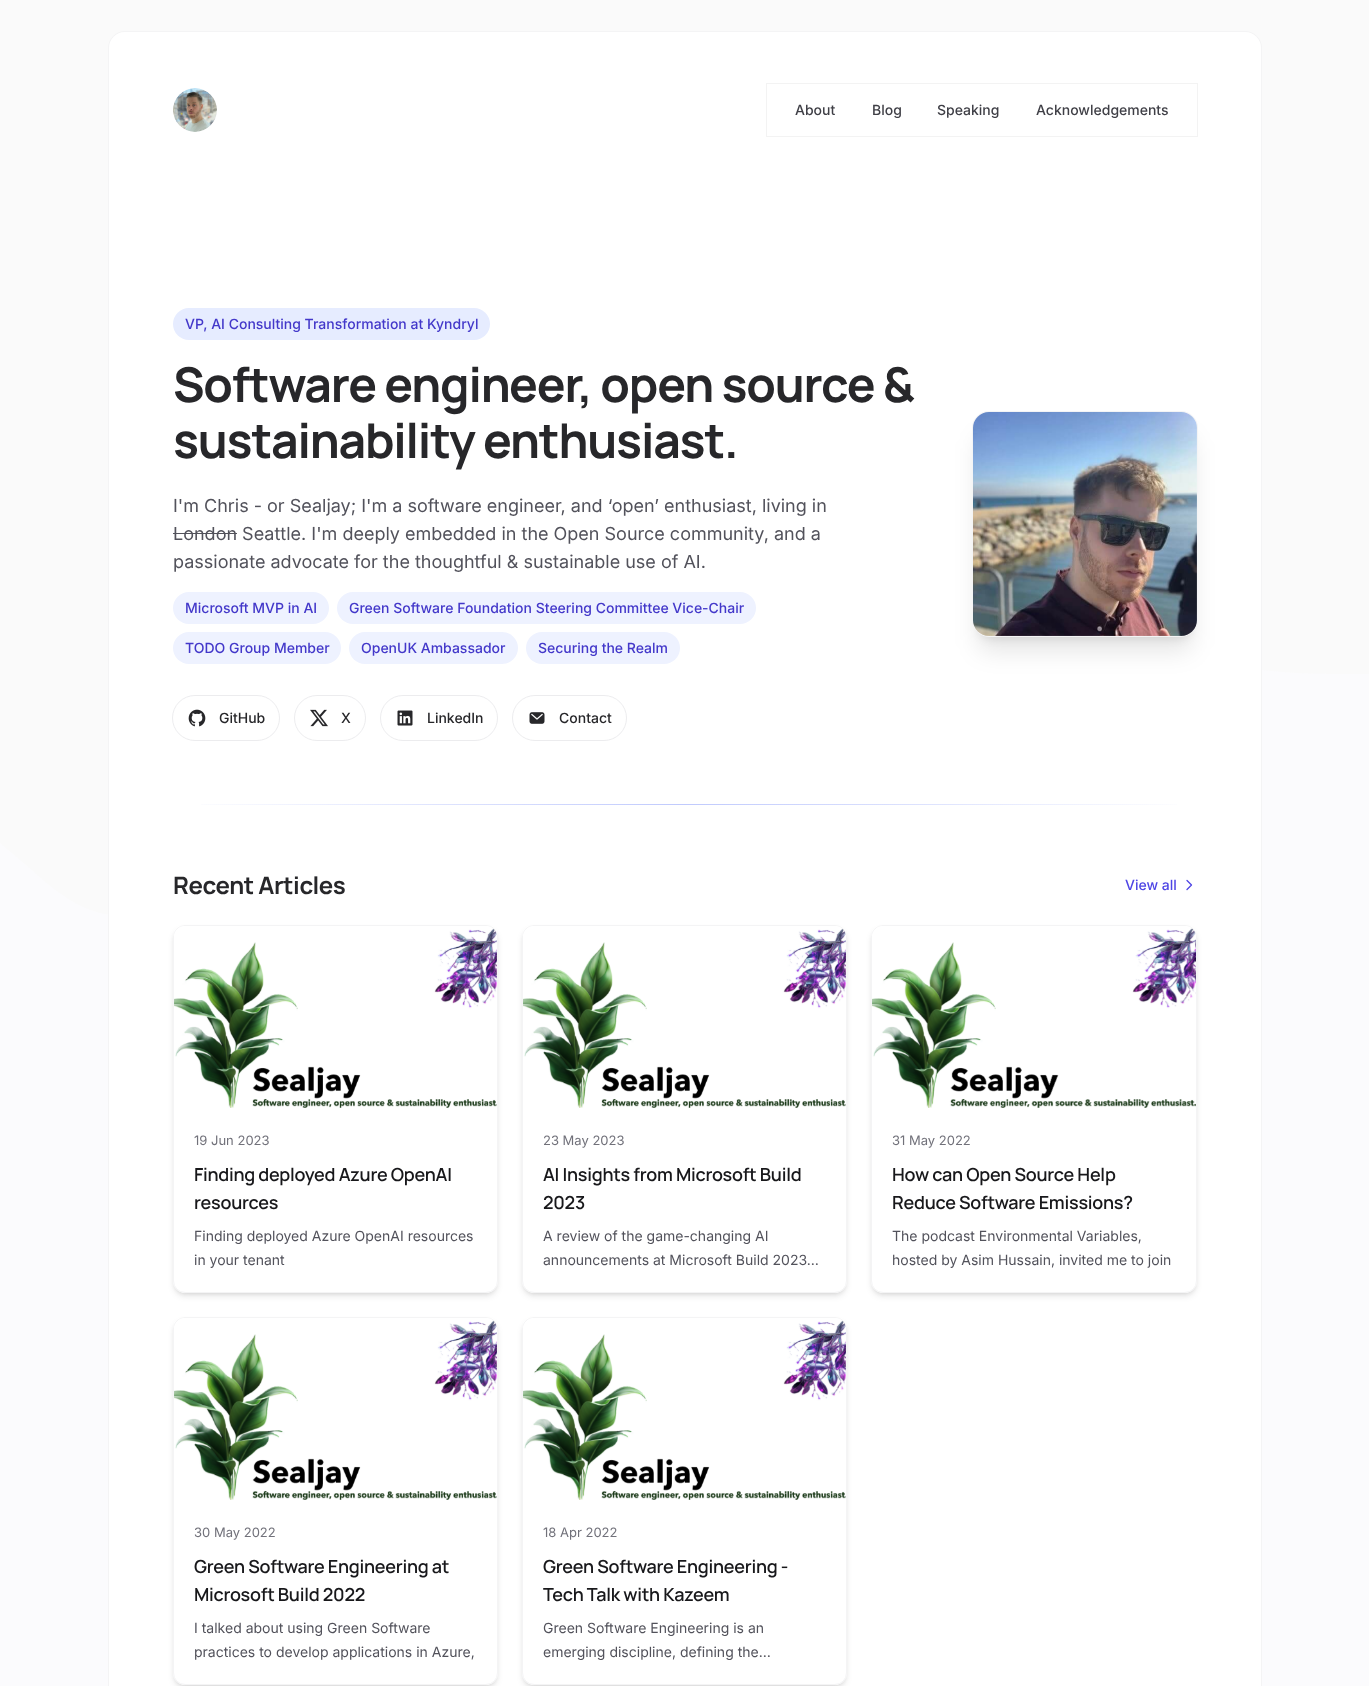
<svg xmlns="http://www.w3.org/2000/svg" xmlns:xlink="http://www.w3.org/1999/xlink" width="1369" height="1686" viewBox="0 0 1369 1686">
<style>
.cls-1{font:500 14px Inter;fill:#3f3f46}
.cls-2{font:500 14px Inter;fill:#4338ca}
.cls-3{font:bold 48px Manrope;letter-spacing:-1.2px;fill:#27272a}
.cls-4{font:18px Inter;fill:#52525b}
.cls-5{font:500 14px Inter;fill:#27272a}
.cls-6{font:bold 24px Manrope;letter-spacing:-0.4px;fill:#27272a}
.cls-7{font:500 14px Inter;fill:#4f46e5}
.cls-8{font:13px Inter;fill:#71717a}
.cls-9{font:600 18px Manrope;letter-spacing:-0.25px;fill:#18181b}
.cls-10{font:14px Inter;fill:#52525b}
</style>
<defs>
<linearGradient id="g1" gradientUnits="userSpaceOnUse" x1="173" y1="805" x2="1197" y2="805"><stop offset="0" stop-color="#ffffff"/><stop offset="0.5" stop-color="#c0cafd"/><stop offset="1" stop-color="#ffffff"/></linearGradient>
<clipPath id="clip1"><path d="M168 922H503V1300H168ZM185 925H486C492.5 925 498 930.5 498 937V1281C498 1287.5 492.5 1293 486 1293H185C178.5 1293 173 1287.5 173 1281V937C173 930.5 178.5 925 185 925Z" clip-rule="evenodd"/></clipPath>
<clipPath id="clip2"><path d="M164 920H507V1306H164ZM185 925H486C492.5 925 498 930.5 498 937V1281C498 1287.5 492.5 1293 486 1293H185C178.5 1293 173 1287.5 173 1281V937C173 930.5 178.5 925 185 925Z" clip-rule="evenodd"/></clipPath>
<clipPath id="clip3"><path d="M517 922H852V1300H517ZM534 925H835C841.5 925 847 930.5 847 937V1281C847 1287.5 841.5 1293 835 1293H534C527.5 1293 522 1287.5 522 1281V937C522 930.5 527.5 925 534 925Z" clip-rule="evenodd"/></clipPath>
<clipPath id="clip4"><path d="M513 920H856V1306H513ZM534 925H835C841.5 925 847 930.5 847 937V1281C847 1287.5 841.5 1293 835 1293H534C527.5 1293 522 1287.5 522 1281V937C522 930.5 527.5 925 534 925Z" clip-rule="evenodd"/></clipPath>
<clipPath id="clip5"><path d="M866 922H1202V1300H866ZM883 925H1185C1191.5 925 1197 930.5 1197 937V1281C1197 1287.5 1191.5 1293 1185 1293H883C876.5 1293 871 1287.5 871 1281V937C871 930.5 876.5 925 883 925Z" clip-rule="evenodd"/></clipPath>
<clipPath id="clip6"><path d="M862 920H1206V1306H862ZM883 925H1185C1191.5 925 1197 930.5 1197 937V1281C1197 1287.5 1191.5 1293 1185 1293H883C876.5 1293 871 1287.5 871 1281V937C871 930.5 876.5 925 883 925Z" clip-rule="evenodd"/></clipPath>
<clipPath id="clip7"><path d="M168 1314H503V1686H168ZM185 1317H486C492.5 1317 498 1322.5 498 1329V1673C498 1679.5 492.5 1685 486 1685H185C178.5 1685 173 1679.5 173 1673V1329C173 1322.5 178.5 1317 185 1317Z" clip-rule="evenodd"/></clipPath>
<clipPath id="clip8"><path d="M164 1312H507V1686H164ZM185 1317H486C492.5 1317 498 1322.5 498 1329V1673C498 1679.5 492.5 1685 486 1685H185C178.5 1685 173 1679.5 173 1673V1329C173 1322.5 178.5 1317 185 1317Z" clip-rule="evenodd"/></clipPath>
<clipPath id="clip9"><path d="M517 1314H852V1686H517ZM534 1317H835C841.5 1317 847 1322.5 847 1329V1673C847 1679.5 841.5 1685 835 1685H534C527.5 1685 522 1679.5 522 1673V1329C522 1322.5 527.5 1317 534 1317Z" clip-rule="evenodd"/></clipPath>
<clipPath id="clip10"><path d="M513 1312H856V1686H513ZM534 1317H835C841.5 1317 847 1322.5 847 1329V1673C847 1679.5 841.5 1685 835 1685H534C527.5 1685 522 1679.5 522 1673V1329C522 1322.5 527.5 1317 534 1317Z" clip-rule="evenodd"/></clipPath>
</defs>
<rect width="100%" height="100%" fill="#fafafa"/>
<path fill="#fbfbfd" d="M0 843L33 871C65 901 130 954 196 871C261 785 326 564 391 506C456 448 522 564 587 674C652 785 717 901 782 871C847 843 913 674 978 618C1043 564 1109 616 1173 646C1239 674 1303 674 1337 674H1369V1686H0Z"/>
<rect fill="none" stroke="#f4f4f5" x="108.5" y="31.5" width="1153" height="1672" rx="16.5"/>
<rect fill="#ffffff" fill-opacity="0.9" x="109" y="32" width="1152" height="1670" rx="16"/>
<circle fill="#f4f4f5" cx="195" cy="110" r="22"/>
<image xlink:href="image0.png" x="173" y="88" width="44" height="44"/>
<rect fill="none" stroke="#18181b" stroke-opacity="0.05" x="766.5" y="83.5" width="431" height="53"/>
<rect fill="#ffffff" fill-opacity="0.9" x="767" y="84" width="430" height="52" rx="26"/>
<rect fill="#e6ecff" x="173" y="308" width="317" height="32" rx="16"/>
<rect fill="#52525b" x="173" y="533" width="64" height="1"/>
<rect fill="#eef2ff" x="173" y="592" width="156" height="32" rx="16"/>
<rect fill="#eef2ff" x="337" y="592" width="419" height="32" rx="16"/>
<rect fill="#eef2ff" x="173" y="632" width="168" height="32" rx="16"/>
<rect fill="#eef2ff" x="349" y="632" width="169" height="32" rx="16"/>
<rect fill="#eef2ff" x="526" y="632" width="154" height="32" rx="16"/>
<rect fill="none" stroke="#e4e4e7" stroke-opacity="0.7" x="172.5" y="695.5" width="107" height="45" rx="22.5"/>
<image xlink:href="image1.png" x="188" y="709" width="18" height="18"/>
<rect fill="none" stroke="#e4e4e7" stroke-opacity="0.7" x="294.5" y="695.5" width="71" height="45" rx="22.5"/>
<image xlink:href="image2.png" x="310" y="709" width="18" height="18"/>
<rect fill="none" stroke="#e4e4e7" stroke-opacity="0.7" x="380.5" y="695.5" width="117" height="45" rx="22.5"/>
<image xlink:href="image3.png" x="397" y="710" width="16" height="16"/>
<rect fill="none" stroke="#e4e4e7" stroke-opacity="0.7" x="512.5" y="695.5" width="114" height="45" rx="22.5"/>
<image xlink:href="image4.png" x="529" y="712" width="16" height="12"/>
<rect fill="#000000" fill-opacity="0.1" filter="blur(5px)" x="979" y="426" width="212" height="212" rx="10"/>
<rect fill="#000000" fill-opacity="0.1" filter="blur(12.5px)" x="978" y="437" width="214" height="214" rx="11"/>
<rect fill="none" stroke="#f4f4f5" x="972.5" y="411.5" width="225" height="225" rx="16.5"/>
<image xlink:href="image5.png" x="973" y="412" width="224" height="224"/>
<rect fill="url(#g1)" x="201" y="804" width="976" height="1"/>
<path fill="none" stroke="#4f46e5" stroke-width="1.3" stroke-linecap="round" stroke-linejoin="round" d="M1187 880.5L1191.5 885L1187 889.5"/>
<g clip-path="url(#clip1)">
<rect fill="#000000" fill-opacity="0.1" filter="blur(2px)" x="175" y="929" width="321" height="364" rx="10"/>
</g>
<g clip-path="url(#clip2)">
<rect fill="#000000" fill-opacity="0.1" filter="blur(3px)" x="174" y="930" width="323" height="366" rx="11"/>
</g>
<rect fill="#ffffff" fill-opacity="0.9" stroke="#f4f4f5" x="173.5" y="925.5" width="324" height="367" rx="11.5"/>
<image xlink:href="image6.png" x="174" y="926" width="323" height="182"/>
<g clip-path="url(#clip3)">
<rect fill="#000000" fill-opacity="0.1" filter="blur(2px)" x="524" y="929" width="321" height="364" rx="10"/>
</g>
<g clip-path="url(#clip4)">
<rect fill="#000000" fill-opacity="0.1" filter="blur(3px)" x="523" y="930" width="323" height="366" rx="11"/>
</g>
<rect fill="#ffffff" fill-opacity="0.9" stroke="#f4f4f5" x="522.5" y="925.5" width="324" height="367" rx="11.5"/>
<image xlink:href="image7.png" x="523" y="926" width="323" height="182"/>
<g clip-path="url(#clip5)">
<rect fill="#000000" fill-opacity="0.1" filter="blur(2px)" x="873" y="929" width="322" height="364" rx="10"/>
</g>
<g clip-path="url(#clip6)">
<rect fill="#000000" fill-opacity="0.1" filter="blur(3px)" x="872" y="930" width="324" height="366" rx="11"/>
</g>
<rect fill="#ffffff" fill-opacity="0.9" stroke="#f4f4f5" x="871.5" y="925.5" width="325" height="367" rx="11.5"/>
<image xlink:href="image8.png" x="872" y="926" width="324" height="182"/>
<g clip-path="url(#clip7)">
<rect fill="#000000" fill-opacity="0.1" filter="blur(2px)" x="175" y="1321" width="321" height="364" rx="10"/>
</g>
<g clip-path="url(#clip8)">
<rect fill="#000000" fill-opacity="0.1" filter="blur(3px)" x="174" y="1322" width="323" height="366" rx="11"/>
</g>
<rect fill="#ffffff" fill-opacity="0.9" stroke="#f4f4f5" x="173.5" y="1317.5" width="324" height="367" rx="11.5"/>
<image xlink:href="image9.png" x="174" y="1318" width="323" height="182"/>
<g clip-path="url(#clip9)">
<rect fill="#000000" fill-opacity="0.1" filter="blur(2px)" x="524" y="1321" width="321" height="364" rx="10"/>
</g>
<g clip-path="url(#clip10)">
<rect fill="#000000" fill-opacity="0.1" filter="blur(3px)" x="523" y="1322" width="323" height="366" rx="11"/>
</g>
<rect fill="#ffffff" fill-opacity="0.9" stroke="#f4f4f5" x="522.5" y="1317.5" width="324" height="367" rx="11.5"/>
<image xlink:href="image9.png" x="523" y="1318" width="323" height="182"/>
<text class="cls-1" x="795" y="115">About</text>
<text class="cls-1" x="872" y="115">Blog</text>
<text class="cls-1" x="937" y="115">Speaking</text>
<text class="cls-1" x="1036" y="115">Acknowledgements</text>
<text class="cls-2" x="185" y="329">VP, AI Consulting Transformation at Kyndryl</text>
<text class="cls-3"><tspan x="173" y="402">Software engineer, open source &amp;</tspan><tspan x="173" y="458">sustainability enthusiast.</tspan></text>
<text class="cls-4"><tspan x="173" y="512">I'm Chris - or Sealjay; I'm a software engineer, and ‘open’ enthusiast, living in</tspan><tspan x="173" y="540">London Seattle. I'm deeply embedded in the Open Source community, and a</tspan><tspan x="173" y="568">passionate advocate for the thoughtful &amp; sustainable use of AI.</tspan></text>
<text class="cls-2" x="185" y="613">Microsoft MVP in AI</text>
<text class="cls-2" x="349" y="613">Green Software Foundation Steering Committee Vice-Chair</text>
<text class="cls-2" x="185" y="653">TODO Group Member</text>
<text class="cls-2" x="361" y="653">OpenUK Ambassador</text>
<text class="cls-2" x="538" y="653">Securing the Realm</text>
<text class="cls-5" x="219" y="723">GitHub</text>
<text class="cls-5" x="341" y="723">X</text>
<text class="cls-5" x="427" y="723">LinkedIn</text>
<text class="cls-5" x="559" y="723">Contact</text>
<text class="cls-6" x="173" y="894">Recent Articles</text>
<text class="cls-7" x="1125" y="890">View all</text>
<text class="cls-8" x="194" y="1145">19 Jun 2023</text>
<text class="cls-9"><tspan x="194" y="1181">Finding deployed Azure OpenAI</tspan><tspan x="194" y="1209">resources</tspan></text>
<text class="cls-10"><tspan x="194" y="1241">Finding deployed Azure OpenAI resources</tspan><tspan x="194" y="1265">in your tenant</tspan></text>
<text class="cls-8" x="543" y="1145">23 May 2023</text>
<text class="cls-9"><tspan x="543" y="1181">AI Insights from Microsoft Build</tspan><tspan x="543" y="1209">2023</tspan></text>
<text class="cls-10"><tspan x="543" y="1241">A review of the game-changing AI</tspan><tspan x="543" y="1265">announcements at Microsoft Build 2023…</tspan></text>
<text class="cls-8" x="892" y="1145">31 May 2022</text>
<text class="cls-9"><tspan x="892" y="1181">How can Open Source Help</tspan><tspan x="892" y="1209">Reduce Software Emissions?</tspan></text>
<text class="cls-10"><tspan x="892" y="1241">The podcast Environmental Variables,</tspan><tspan x="892" y="1265">hosted by Asim Hussain, invited me to join</tspan></text>
<text class="cls-8" x="194" y="1537">30 May 2022</text>
<text class="cls-9"><tspan x="194" y="1573">Green Software Engineering at</tspan><tspan x="194" y="1601">Microsoft Build 2022</tspan></text>
<text class="cls-10"><tspan x="194" y="1633">I talked about using Green Software</tspan><tspan x="194" y="1657">practices to develop applications in Azure,</tspan></text>
<text class="cls-8" x="543" y="1537">18 Apr 2022</text>
<text class="cls-9"><tspan x="543" y="1573">Green Software Engineering -</tspan><tspan x="543" y="1601">Tech Talk with Kazeem</tspan></text>
<text class="cls-10"><tspan x="543" y="1633">Green Software Engineering is an</tspan><tspan x="543" y="1657">emerging discipline, defining the…</tspan></text>
</svg>
